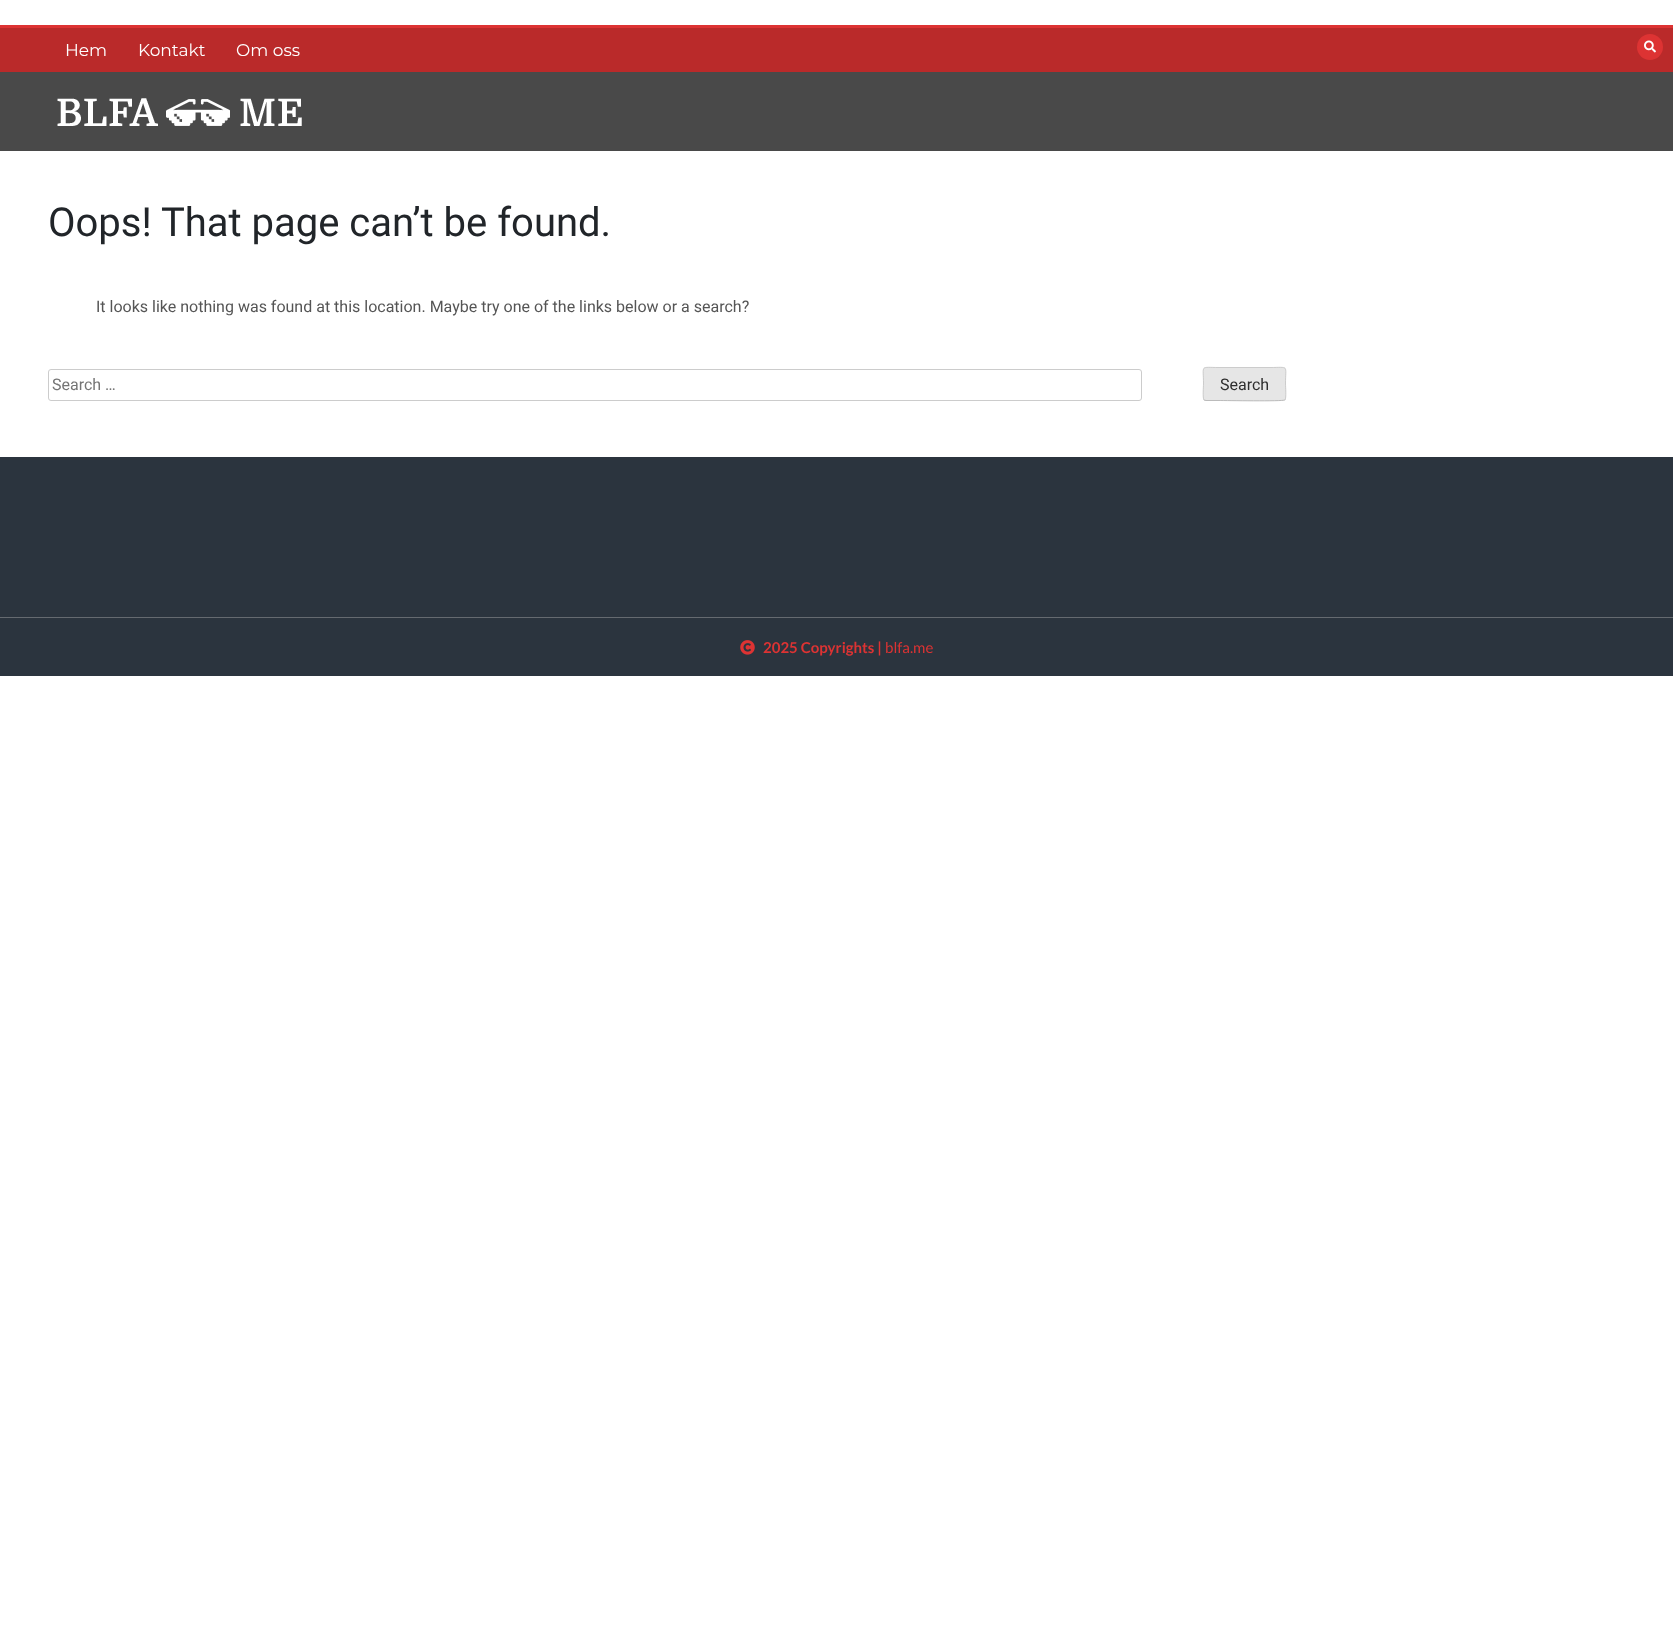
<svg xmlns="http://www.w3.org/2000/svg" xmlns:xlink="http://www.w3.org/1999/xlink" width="1673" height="1631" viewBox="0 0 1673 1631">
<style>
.cls-1{font:17px Montserrat;fill:#ffffff}
.cls-2{font:40px Roboto;fill:#212529}
.cls-3{font:16px Roboto;fill:#555555}
.cls-4{font:16px Roboto;fill:#757575}
.cls-5{font:16px Roboto;fill:#2e2e2e}
.cls-6{font:bold 15px Lato;fill:#dd3333}
.cls-7{font:15px Lato;fill:#dd3333}
</style>
<rect width="100%" height="100%" fill="#ffffff"/>
<rect fill="#ba2a2a" x="0" y="28" width="1673" height="44"/>
<rect fill="#dd3333" x="0" y="25" width="1673" height="3"/>
<circle fill="#dd3333" cx="1650" cy="47" r="13"/>
<image xlink:href="image0.png" x="1644" y="40" width="12" height="13"/>
<rect fill="#494949" x="0" y="72" width="1673" height="79"/>
<image xlink:href="image1.png" x="57" y="98" width="245" height="28"/>
<rect fill="none" stroke="#cccccc" x="48.5" y="369.5" width="1093" height="31" rx="2.5"/>
<rect fill="#e6e6e6" x="1203" y="367" width="83" height="34" rx="3"/>
<path fill="none" stroke="#bbbbbb" d="M1285 400H1284.5C1282.5 401.5 1226 400.5 1219 400.5H1206L1204 400"/>
<path fill="none" stroke="#cccccc" d="M1204 400C1202.5 398 1203.5 386.5 1203.5 384C1203.5 364.5 1199.5 367.5 1219 367.5H1270C1289.5 367.5 1285.5 364.5 1285.5 384C1285.5 386.5 1286.5 398 1285 400"/>
<rect fill="#2b343e" x="0" y="457" width="1673" height="219"/>
<rect fill="#656a70" x="0" y="617" width="1673" height="1"/>
<image xlink:href="image2.png" x="740" y="640" width="15" height="15"/>
<text class="cls-1" x="65" y="56">Hem</text>
<text class="cls-1" x="138" y="56">Kontakt</text>
<text class="cls-1" x="236" y="56">Om oss</text>
<text class="cls-2" x="48" y="236">Oops! That page can’t be found.</text>
<text class="cls-3" x="96" y="312">It looks like nothing was found at this location. Maybe try one of the links below or a search?</text>
<text class="cls-4" x="52" y="390">Search …</text>
<text class="cls-5" x="1220" y="390">Search</text>
<text class="cls-6" x="763" y="653">2025 Copyrights |</text>
<text class="cls-7" x="885" y="653">blfa.me</text>
</svg>
